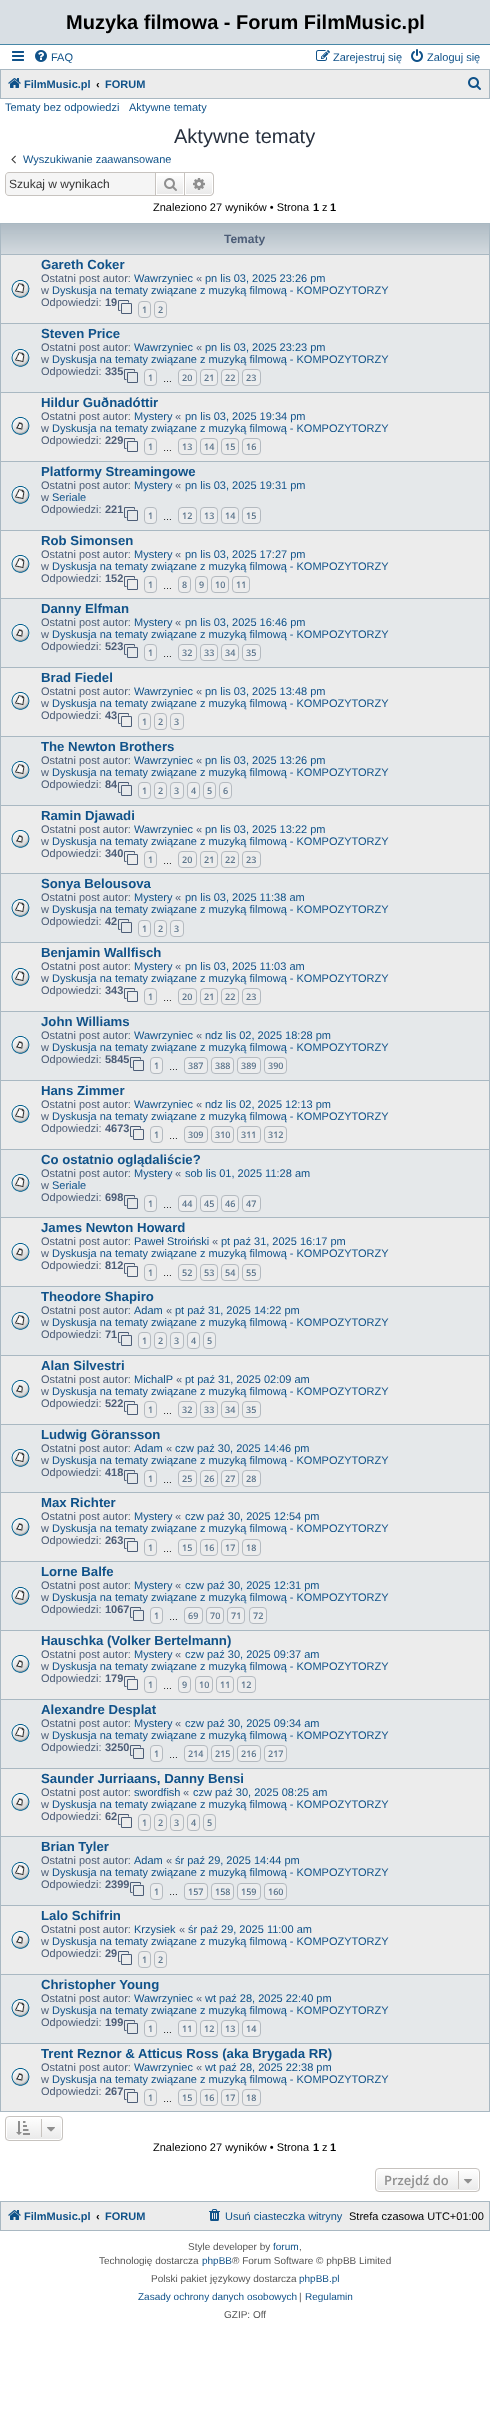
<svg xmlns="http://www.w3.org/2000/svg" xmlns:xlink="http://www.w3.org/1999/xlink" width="490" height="2414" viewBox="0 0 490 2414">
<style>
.cls-1{font:bold 20px Liberation Sans;fill:#000000}
.cls-2{font:11px Liberation Sans;fill:#105289}
.cls-3{font:bold 11px Liberation Sans;fill:#105289}
.cls-4{font:bold 11px Liberation Sans;fill:#000000}
.cls-5{font:20px Liberation Sans;fill:#28313f}
.cls-6{font:12px Liberation Sans;fill:#333333}
.cls-7{font:11px Liberation Sans;fill:#000000}
.cls-8{font:bold 12px Liberation Sans;fill:#4c5d77}
.cls-9{font:bold 13.2px Liberation Sans;fill:#105289}
.cls-10{font:11px Liberation Sans;fill:#4c5d77}
.cls-11{font:bold 11px Liberation Sans;fill:#4c5d77}
.cls-12{font:600 9px Open Sans;fill:#5c758c}
.cls-13{font:9px Liberation Sans;fill:#000000}
.cls-14{font:600 13px Open Sans;fill:#8f8f8f}
.cls-15{font:10px Liberation Sans;fill:#555555}
.cls-16{font:10px Liberation Sans;fill:#105289}
</style>
<defs>
<linearGradient id="g1" gradientUnits="userSpaceOnUse" x1="170" y1="173" x2="170" y2="195"><stop offset="0" stop-color="#ffffff"/><stop offset="1" stop-color="#e9e9e9"/></linearGradient>
<linearGradient id="g2" gradientUnits="userSpaceOnUse" x1="199" y1="173" x2="199" y2="195"><stop offset="0" stop-color="#ffffff"/><stop offset="1" stop-color="#e9e9e9"/></linearGradient>
<clipPath id="clip1"><rect x="5" y="2116" width="58" height="25" rx="4"/></clipPath>
<linearGradient id="g3" gradientUnits="userSpaceOnUse" x1="34" y1="2117" x2="34" y2="2140"><stop offset="0" stop-color="#ffffff"/><stop offset="1" stop-color="#e9e9e9"/></linearGradient>
<clipPath id="clip2"><rect x="375" y="2168" width="105" height="24" rx="4"/></clipPath>
<linearGradient id="g4" gradientUnits="userSpaceOnUse" x1="428" y1="2169" x2="428" y2="2191"><stop offset="0" stop-color="#ffffff"/><stop offset="1" stop-color="#e9e9e9"/></linearGradient>
</defs>
<rect width="100%" height="100%" fill="#ffffff"/>
<rect fill="#d9dfe4" x="0" y="0" width="490" height="44"/>
<rect fill="#4787a7" x="0" y="44" width="490" height="1"/>
<image xlink:href="image0.png" x="12" y="51" width="12" height="10"/>
<image xlink:href="image1.png" x="35" y="50" width="12" height="12"/>
<image xlink:href="image2.png" x="316" y="50" width="14" height="11"/>
<image xlink:href="image3.png" x="411" y="49" width="12" height="13"/>
<rect fill="#ececec" stroke="#a9b8c2" x="0.5" y="69.5" width="489" height="29"/>
<image xlink:href="image4.png" x="8" y="78" width="13" height="10"/>
<image xlink:href="image5.png" x="468" y="77" width="13" height="13"/>
<image xlink:href="image6.png" x="11" y="155" width="5" height="9"/>
<path fill="#f5f5f5" d="M9 173H155V195H9C7.5 195 6 193.5 6 192V176C6 174.5 7.5 173 9 173Z"/>
<path fill="#c7c3bf" fill-rule="evenodd" d="M9 172H155V196H9C7 196 5 194 5 192V176C5 174 7 172 9 172ZM9 173H155V195H9C7 195 6 194 6 192V176C6 174 7 173 9 173Z"/>
<rect fill="url(#g1)" x="157" y="176" width="26" height="18"/>
<rect fill="none" stroke="#c7c3bf" x="155.5" y="172.5" width="29" height="23"/>
<image xlink:href="image7.png" x="164" y="178" width="13" height="13"/>
<path fill="url(#g2)" stroke="#ffffff" d="M185.5 173.5H210C211.5 173.5 212.5 174.5 212.5 176V192C212.5 193.5 211.5 194.5 210 194.5H185.5Z"/>
<path fill="#c7c3bf" fill-rule="evenodd" d="M185 172H210C212 172 214 174 214 176V192C214 194 212 196 210 196H185ZM185 173H210C211.5 173 213 174.5 213 176V192C213 193.5 211.5 195 210 195H185Z"/>
<image xlink:href="image8.png" x="193" y="178" width="12" height="12"/>
<rect fill="#ececec" x="1" y="255" width="488" height="1856"/>
<image xlink:href="image9.png" x="1" y="224" width="488" height="30"/>
<rect fill="none" stroke="#a9b8c2" x="0.5" y="223.5" width="489" height="1888"/>
<rect fill="#a9b8c2" x="1" y="254" width="488" height="1"/>
<image xlink:href="image10.png" x="11" y="280" width="19" height="18"/>
<image xlink:href="image11.png" x="118" y="300" width="14" height="14"/>
<rect fill="none" stroke="#b4bac0" x="138.5" y="301.5" width="12" height="16" rx="3.5"/>
<rect fill="none" stroke="#b4bac0" x="154.5" y="301.5" width="12" height="16" rx="3.5"/>
<rect fill="#e5e8ea" x="1" y="324" width="488" height="68"/>
<rect fill="#a9b8c2" x="1" y="323" width="488" height="1"/>
<image xlink:href="image12.png" x="11" y="349" width="19" height="18"/>
<image xlink:href="image13.png" x="124" y="369" width="14" height="14"/>
<rect fill="#ecedee" stroke="#b4bac0" x="144.5" y="369.5" width="12" height="16" rx="3.5"/>
<rect fill="#ecedee" stroke="#b4bac0" x="178.5" y="369.5" width="18" height="16" rx="3.5"/>
<rect fill="#ecedee" stroke="#b4bac0" x="200.5" y="369.5" width="17" height="16" rx="3.5"/>
<rect fill="#ecedee" stroke="#b4bac0" x="221.5" y="369.5" width="17" height="16" rx="3.5"/>
<rect fill="#ecedee" stroke="#b4bac0" x="242.5" y="369.5" width="18" height="16" rx="3.5"/>
<rect fill="#a9b8c2" x="1" y="392" width="488" height="1"/>
<image xlink:href="image14.png" x="11" y="417" width="19" height="18"/>
<image xlink:href="image11.png" x="124" y="438" width="14" height="14"/>
<rect fill="none" stroke="#b4bac0" x="144.5" y="438.5" width="12" height="16" rx="3.5"/>
<rect fill="none" stroke="#b4bac0" x="178.5" y="438.5" width="18" height="16" rx="3.5"/>
<rect fill="none" stroke="#b4bac0" x="200.5" y="438.5" width="17" height="16" rx="3.5"/>
<rect fill="none" stroke="#b4bac0" x="221.5" y="438.5" width="17" height="16" rx="3.5"/>
<rect fill="none" stroke="#b4bac0" x="242.5" y="438.5" width="18" height="16" rx="3.5"/>
<rect fill="#e5e8ea" x="1" y="462" width="488" height="68"/>
<rect fill="#a9b8c2" x="1" y="461" width="488" height="1"/>
<image xlink:href="image12.png" x="11" y="486" width="19" height="18"/>
<image xlink:href="image13.png" x="124" y="507" width="14" height="14"/>
<rect fill="#ecedee" stroke="#b4bac0" x="144.5" y="507.5" width="12" height="16" rx="3.5"/>
<rect fill="#ecedee" stroke="#b4bac0" x="178.5" y="507.5" width="18" height="16" rx="3.5"/>
<rect fill="#ecedee" stroke="#b4bac0" x="200.5" y="507.5" width="17" height="16" rx="3.5"/>
<rect fill="#ecedee" stroke="#b4bac0" x="221.5" y="507.5" width="17" height="16" rx="3.5"/>
<rect fill="#ecedee" stroke="#b4bac0" x="242.5" y="507.5" width="18" height="16" rx="3.5"/>
<rect fill="#a9b8c2" x="1" y="530" width="488" height="1"/>
<image xlink:href="image15.png" x="11" y="555" width="19" height="18"/>
<image xlink:href="image11.png" x="124" y="576" width="14" height="14"/>
<rect fill="none" stroke="#b4bac0" x="144.5" y="576.5" width="12" height="16" rx="3.5"/>
<rect fill="none" stroke="#b4bac0" x="178.5" y="576.5" width="12" height="16" rx="3.5"/>
<rect fill="none" stroke="#b4bac0" x="195.5" y="576.5" width="12" height="16" rx="3.5"/>
<rect fill="none" stroke="#b4bac0" x="211.5" y="576.5" width="17" height="16" rx="3.5"/>
<rect fill="none" stroke="#b4bac0" x="232.5" y="576.5" width="17" height="16" rx="3.5"/>
<rect fill="#e5e8ea" x="1" y="599" width="488" height="68"/>
<rect fill="#a9b8c2" x="1" y="598" width="488" height="1"/>
<image xlink:href="image16.png" x="11" y="624" width="19" height="18"/>
<image xlink:href="image13.png" x="124" y="644" width="14" height="14"/>
<rect fill="#ecedee" stroke="#b4bac0" x="144.5" y="644.5" width="12" height="16" rx="3.5"/>
<rect fill="#ecedee" stroke="#b4bac0" x="178.5" y="644.5" width="18" height="16" rx="3.5"/>
<rect fill="#ecedee" stroke="#b4bac0" x="200.5" y="644.5" width="17" height="16" rx="3.5"/>
<rect fill="#ecedee" stroke="#b4bac0" x="221.5" y="644.5" width="17" height="16" rx="3.5"/>
<rect fill="#ecedee" stroke="#b4bac0" x="242.5" y="644.5" width="18" height="16" rx="3.5"/>
<rect fill="#a9b8c2" x="1" y="667" width="488" height="1"/>
<image xlink:href="image15.png" x="11" y="692" width="19" height="18"/>
<image xlink:href="image11.png" x="118" y="713" width="14" height="14"/>
<rect fill="none" stroke="#b4bac0" x="138.5" y="713.5" width="12" height="16" rx="3.5"/>
<rect fill="none" stroke="#b4bac0" x="154.5" y="713.5" width="12" height="16" rx="3.5"/>
<rect fill="none" stroke="#b4bac0" x="170.5" y="713.5" width="13" height="16" rx="3.5"/>
<rect fill="#e5e8ea" x="1" y="737" width="488" height="68"/>
<rect fill="#a9b8c2" x="1" y="736" width="488" height="1"/>
<image xlink:href="image12.png" x="11" y="761" width="19" height="18"/>
<image xlink:href="image13.png" x="118" y="782" width="14" height="14"/>
<rect fill="#ecedee" stroke="#b4bac0" x="138.5" y="782.5" width="12" height="16" rx="3.5"/>
<rect fill="#ecedee" stroke="#b4bac0" x="154.5" y="782.5" width="12" height="16" rx="3.5"/>
<rect fill="#ecedee" stroke="#b4bac0" x="170.5" y="782.5" width="13" height="16" rx="3.5"/>
<rect fill="#ecedee" stroke="#b4bac0" x="187.5" y="782.5" width="12" height="16" rx="3.5"/>
<rect fill="#ecedee" stroke="#b4bac0" x="203.5" y="782.5" width="12" height="16" rx="3.5"/>
<rect fill="#ecedee" stroke="#b4bac0" x="219.5" y="782.5" width="12" height="16" rx="3.5"/>
<rect fill="#a9b8c2" x="1" y="805" width="488" height="1"/>
<image xlink:href="image14.png" x="11" y="830" width="19" height="18"/>
<image xlink:href="image11.png" x="124" y="851" width="14" height="14"/>
<rect fill="none" stroke="#b4bac0" x="144.5" y="851.5" width="12" height="16" rx="3.5"/>
<rect fill="none" stroke="#b4bac0" x="178.5" y="851.5" width="18" height="16" rx="3.5"/>
<rect fill="none" stroke="#b4bac0" x="200.5" y="851.5" width="17" height="16" rx="3.5"/>
<rect fill="none" stroke="#b4bac0" x="221.5" y="851.5" width="17" height="16" rx="3.5"/>
<rect fill="none" stroke="#b4bac0" x="242.5" y="851.5" width="18" height="16" rx="3.5"/>
<rect fill="#e5e8ea" x="1" y="874" width="488" height="68"/>
<rect fill="#a9b8c2" x="1" y="873" width="488" height="1"/>
<image xlink:href="image12.png" x="11" y="899" width="19" height="18"/>
<image xlink:href="image13.png" x="118" y="919" width="14" height="14"/>
<rect fill="#ecedee" stroke="#b4bac0" x="138.5" y="920.5" width="12" height="16" rx="3.5"/>
<rect fill="#ecedee" stroke="#b4bac0" x="154.5" y="920.5" width="12" height="16" rx="3.5"/>
<rect fill="#ecedee" stroke="#b4bac0" x="170.5" y="920.5" width="13" height="16" rx="3.5"/>
<rect fill="#a9b8c2" x="1" y="942" width="488" height="1"/>
<image xlink:href="image15.png" x="11" y="968" width="19" height="18"/>
<image xlink:href="image11.png" x="124" y="988" width="14" height="14"/>
<rect fill="none" stroke="#b4bac0" x="144.5" y="988.5" width="12" height="16" rx="3.5"/>
<rect fill="none" stroke="#b4bac0" x="178.5" y="988.5" width="18" height="16" rx="3.5"/>
<rect fill="none" stroke="#b4bac0" x="200.5" y="988.5" width="17" height="16" rx="3.5"/>
<rect fill="none" stroke="#b4bac0" x="221.5" y="988.5" width="17" height="16" rx="3.5"/>
<rect fill="none" stroke="#b4bac0" x="242.5" y="988.5" width="18" height="16" rx="3.5"/>
<rect fill="#e5e8ea" x="1" y="1012" width="488" height="68"/>
<rect fill="#a9b8c2" x="1" y="1011" width="488" height="1"/>
<image xlink:href="image16.png" x="11" y="1036" width="19" height="18"/>
<image xlink:href="image13.png" x="130" y="1057" width="14" height="14"/>
<rect fill="#ecedee" stroke="#b4bac0" x="150.5" y="1057.5" width="12" height="16" rx="3.5"/>
<rect fill="#ecedee" stroke="#b4bac0" x="184.5" y="1057.5" width="23" height="16" rx="3.5"/>
<rect fill="#ecedee" stroke="#b4bac0" x="211.5" y="1057.5" width="22" height="16" rx="3.5"/>
<rect fill="#ecedee" stroke="#b4bac0" x="237.5" y="1057.5" width="23" height="16" rx="3.5"/>
<rect fill="#ecedee" stroke="#b4bac0" x="264.5" y="1057.5" width="22" height="16" rx="3.5"/>
<rect fill="#a9b8c2" x="1" y="1080" width="488" height="1"/>
<image xlink:href="image15.png" x="11" y="1105" width="19" height="18"/>
<image xlink:href="image11.png" x="130" y="1126" width="14" height="14"/>
<rect fill="none" stroke="#b4bac0" x="150.5" y="1126.5" width="12" height="16" rx="3.5"/>
<rect fill="none" stroke="#b4bac0" x="184.5" y="1126.5" width="23" height="16" rx="3.5"/>
<rect fill="none" stroke="#b4bac0" x="211.5" y="1126.5" width="22" height="16" rx="3.5"/>
<rect fill="none" stroke="#b4bac0" x="237.5" y="1126.5" width="23" height="16" rx="3.5"/>
<rect fill="none" stroke="#b4bac0" x="264.5" y="1126.5" width="22" height="16" rx="3.5"/>
<rect fill="#e5e8ea" x="1" y="1150" width="488" height="67"/>
<rect fill="#a9b8c2" x="1" y="1149" width="488" height="1"/>
<image xlink:href="image12.png" x="11" y="1174" width="19" height="18"/>
<image xlink:href="image13.png" x="124" y="1195" width="14" height="14"/>
<rect fill="#ecedee" stroke="#b4bac0" x="144.5" y="1195.5" width="12" height="16" rx="3.5"/>
<rect fill="#ecedee" stroke="#b4bac0" x="178.5" y="1195.5" width="18" height="16" rx="3.5"/>
<rect fill="#ecedee" stroke="#b4bac0" x="200.5" y="1195.5" width="17" height="16" rx="3.5"/>
<rect fill="#ecedee" stroke="#b4bac0" x="221.5" y="1195.5" width="17" height="16" rx="3.5"/>
<rect fill="#ecedee" stroke="#b4bac0" x="242.5" y="1195.5" width="18" height="16" rx="3.5"/>
<rect fill="#a9b8c2" x="1" y="1217" width="488" height="1"/>
<image xlink:href="image14.png" x="11" y="1243" width="19" height="18"/>
<image xlink:href="image11.png" x="124" y="1263" width="14" height="14"/>
<rect fill="none" stroke="#b4bac0" x="144.5" y="1264.5" width="12" height="16" rx="3.5"/>
<rect fill="none" stroke="#b4bac0" x="178.5" y="1264.5" width="18" height="16" rx="3.5"/>
<rect fill="none" stroke="#b4bac0" x="200.5" y="1264.5" width="17" height="16" rx="3.5"/>
<rect fill="none" stroke="#b4bac0" x="221.5" y="1264.5" width="17" height="16" rx="3.5"/>
<rect fill="none" stroke="#b4bac0" x="242.5" y="1264.5" width="18" height="16" rx="3.5"/>
<rect fill="#e5e8ea" x="1" y="1287" width="488" height="68"/>
<rect fill="#a9b8c2" x="1" y="1286" width="488" height="1"/>
<image xlink:href="image12.png" x="11" y="1312" width="19" height="18"/>
<image xlink:href="image13.png" x="118" y="1332" width="14" height="14"/>
<rect fill="#ecedee" stroke="#b4bac0" x="138.5" y="1332.5" width="12" height="16" rx="3.5"/>
<rect fill="#ecedee" stroke="#b4bac0" x="154.5" y="1332.5" width="12" height="16" rx="3.5"/>
<rect fill="#ecedee" stroke="#b4bac0" x="170.5" y="1332.5" width="13" height="16" rx="3.5"/>
<rect fill="#ecedee" stroke="#b4bac0" x="187.5" y="1332.5" width="12" height="16" rx="3.5"/>
<rect fill="#ecedee" stroke="#b4bac0" x="203.5" y="1332.5" width="12" height="16" rx="3.5"/>
<rect fill="#a9b8c2" x="1" y="1355" width="488" height="1"/>
<image xlink:href="image14.png" x="11" y="1380" width="19" height="18"/>
<image xlink:href="image11.png" x="124" y="1401" width="14" height="14"/>
<rect fill="none" stroke="#b4bac0" x="144.5" y="1401.5" width="12" height="16" rx="3.5"/>
<rect fill="none" stroke="#b4bac0" x="178.5" y="1401.5" width="18" height="16" rx="3.5"/>
<rect fill="none" stroke="#b4bac0" x="200.5" y="1401.5" width="17" height="16" rx="3.5"/>
<rect fill="none" stroke="#b4bac0" x="221.5" y="1401.5" width="17" height="16" rx="3.5"/>
<rect fill="none" stroke="#b4bac0" x="242.5" y="1401.5" width="18" height="16" rx="3.5"/>
<rect fill="#e5e8ea" x="1" y="1425" width="488" height="67"/>
<rect fill="#a9b8c2" x="1" y="1424" width="488" height="1"/>
<image xlink:href="image12.png" x="11" y="1449" width="19" height="18"/>
<image xlink:href="image13.png" x="124" y="1470" width="14" height="14"/>
<rect fill="#ecedee" stroke="#b4bac0" x="144.5" y="1470.5" width="12" height="16" rx="3.5"/>
<rect fill="#ecedee" stroke="#b4bac0" x="178.5" y="1470.5" width="18" height="16" rx="3.5"/>
<rect fill="#ecedee" stroke="#b4bac0" x="200.5" y="1470.5" width="17" height="16" rx="3.5"/>
<rect fill="#ecedee" stroke="#b4bac0" x="221.5" y="1470.5" width="17" height="16" rx="3.5"/>
<rect fill="#ecedee" stroke="#b4bac0" x="242.5" y="1470.5" width="18" height="16" rx="3.5"/>
<rect fill="#a9b8c2" x="1" y="1492" width="488" height="1"/>
<image xlink:href="image14.png" x="11" y="1518" width="19" height="18"/>
<image xlink:href="image11.png" x="124" y="1538" width="14" height="14"/>
<rect fill="none" stroke="#b4bac0" x="144.5" y="1539.5" width="12" height="16" rx="3.5"/>
<rect fill="none" stroke="#b4bac0" x="178.5" y="1539.5" width="18" height="16" rx="3.5"/>
<rect fill="none" stroke="#b4bac0" x="200.5" y="1539.5" width="17" height="16" rx="3.5"/>
<rect fill="none" stroke="#b4bac0" x="221.5" y="1539.5" width="17" height="16" rx="3.5"/>
<rect fill="none" stroke="#b4bac0" x="242.5" y="1539.5" width="18" height="16" rx="3.5"/>
<rect fill="#e5e8ea" x="1" y="1562" width="488" height="68"/>
<rect fill="#a9b8c2" x="1" y="1561" width="488" height="1"/>
<image xlink:href="image12.png" x="11" y="1587" width="19" height="18"/>
<image xlink:href="image13.png" x="130" y="1607" width="14" height="14"/>
<rect fill="#ecedee" stroke="#b4bac0" x="150.5" y="1607.5" width="12" height="16" rx="3.5"/>
<rect fill="#ecedee" stroke="#b4bac0" x="184.5" y="1607.5" width="18" height="16" rx="3.5"/>
<rect fill="#ecedee" stroke="#b4bac0" x="206.5" y="1607.5" width="17" height="16" rx="3.5"/>
<rect fill="#ecedee" stroke="#b4bac0" x="227.5" y="1607.5" width="17" height="16" rx="3.5"/>
<rect fill="#ecedee" stroke="#b4bac0" x="249.5" y="1607.5" width="17" height="16" rx="3.5"/>
<rect fill="#a9b8c2" x="1" y="1630" width="488" height="1"/>
<image xlink:href="image14.png" x="11" y="1655" width="19" height="18"/>
<image xlink:href="image11.png" x="124" y="1676" width="14" height="14"/>
<rect fill="none" stroke="#b4bac0" x="144.5" y="1676.5" width="12" height="16" rx="3.5"/>
<rect fill="none" stroke="#b4bac0" x="178.5" y="1676.5" width="12" height="16" rx="3.5"/>
<rect fill="none" stroke="#b4bac0" x="195.5" y="1676.5" width="17" height="16" rx="3.5"/>
<rect fill="none" stroke="#b4bac0" x="216.5" y="1676.5" width="17" height="16" rx="3.5"/>
<rect fill="none" stroke="#b4bac0" x="237.5" y="1676.5" width="18" height="16" rx="3.5"/>
<rect fill="#e5e8ea" x="1" y="1700" width="488" height="68"/>
<rect fill="#a9b8c2" x="1" y="1699" width="488" height="1"/>
<image xlink:href="image12.png" x="11" y="1724" width="19" height="18"/>
<image xlink:href="image13.png" x="130" y="1745" width="14" height="14"/>
<rect fill="#ecedee" stroke="#b4bac0" x="150.5" y="1745.5" width="12" height="16" rx="3.5"/>
<rect fill="#ecedee" stroke="#b4bac0" x="184.5" y="1745.5" width="23" height="16" rx="3.5"/>
<rect fill="#ecedee" stroke="#b4bac0" x="211.5" y="1745.5" width="22" height="16" rx="3.5"/>
<rect fill="#ecedee" stroke="#b4bac0" x="237.5" y="1745.5" width="23" height="16" rx="3.5"/>
<rect fill="#ecedee" stroke="#b4bac0" x="264.5" y="1745.5" width="22" height="16" rx="3.5"/>
<rect fill="#a9b8c2" x="1" y="1768" width="488" height="1"/>
<image xlink:href="image14.png" x="11" y="1793" width="19" height="18"/>
<image xlink:href="image11.png" x="118" y="1814" width="14" height="14"/>
<rect fill="none" stroke="#b4bac0" x="138.5" y="1814.5" width="12" height="16" rx="3.5"/>
<rect fill="none" stroke="#b4bac0" x="154.5" y="1814.5" width="12" height="16" rx="3.5"/>
<rect fill="none" stroke="#b4bac0" x="170.5" y="1814.5" width="13" height="16" rx="3.5"/>
<rect fill="none" stroke="#b4bac0" x="187.5" y="1814.5" width="12" height="16" rx="3.5"/>
<rect fill="none" stroke="#b4bac0" x="203.5" y="1814.5" width="12" height="16" rx="3.5"/>
<rect fill="#e5e8ea" x="1" y="1837" width="488" height="68"/>
<rect fill="#a9b8c2" x="1" y="1836" width="488" height="1"/>
<image xlink:href="image12.png" x="11" y="1862" width="19" height="18"/>
<image xlink:href="image13.png" x="130" y="1882" width="14" height="14"/>
<rect fill="#ecedee" stroke="#b4bac0" x="150.5" y="1883.5" width="12" height="16" rx="3.5"/>
<rect fill="#ecedee" stroke="#b4bac0" x="184.5" y="1883.5" width="23" height="16" rx="3.5"/>
<rect fill="#ecedee" stroke="#b4bac0" x="211.5" y="1883.5" width="22" height="16" rx="3.5"/>
<rect fill="#ecedee" stroke="#b4bac0" x="237.5" y="1883.5" width="23" height="16" rx="3.5"/>
<rect fill="#ecedee" stroke="#b4bac0" x="264.5" y="1883.5" width="22" height="16" rx="3.5"/>
<rect fill="#a9b8c2" x="1" y="1905" width="488" height="1"/>
<image xlink:href="image14.png" x="11" y="1931" width="19" height="18"/>
<image xlink:href="image11.png" x="118" y="1951" width="14" height="14"/>
<rect fill="none" stroke="#b4bac0" x="138.5" y="1951.5" width="12" height="16" rx="3.5"/>
<rect fill="none" stroke="#b4bac0" x="154.5" y="1951.5" width="12" height="16" rx="3.5"/>
<rect fill="#e5e8ea" x="1" y="1975" width="488" height="68"/>
<rect fill="#a9b8c2" x="1" y="1974" width="488" height="1"/>
<image xlink:href="image12.png" x="11" y="1999" width="19" height="18"/>
<image xlink:href="image13.png" x="124" y="2020" width="14" height="14"/>
<rect fill="#ecedee" stroke="#b4bac0" x="144.5" y="2020.5" width="12" height="16" rx="3.5"/>
<rect fill="#ecedee" stroke="#b4bac0" x="178.5" y="2020.5" width="18" height="16" rx="3.5"/>
<rect fill="#ecedee" stroke="#b4bac0" x="200.5" y="2020.5" width="17" height="16" rx="3.5"/>
<rect fill="#ecedee" stroke="#b4bac0" x="221.5" y="2020.5" width="17" height="16" rx="3.5"/>
<rect fill="#ecedee" stroke="#b4bac0" x="242.5" y="2020.5" width="18" height="16" rx="3.5"/>
<rect fill="#a9b8c2" x="1" y="2043" width="488" height="1"/>
<image xlink:href="image14.png" x="11" y="2068" width="19" height="18"/>
<image xlink:href="image11.png" x="124" y="2089" width="14" height="14"/>
<rect fill="none" stroke="#b4bac0" x="144.5" y="2089.5" width="12" height="16" rx="3.5"/>
<rect fill="none" stroke="#b4bac0" x="178.5" y="2089.5" width="18" height="16" rx="3.5"/>
<rect fill="none" stroke="#b4bac0" x="200.5" y="2089.5" width="17" height="16" rx="3.5"/>
<rect fill="none" stroke="#b4bac0" x="221.5" y="2089.5" width="17" height="16" rx="3.5"/>
<rect fill="none" stroke="#b4bac0" x="242.5" y="2089.5" width="18" height="16" rx="3.5"/>
<g clip-path="url(#clip1)">
<rect fill="url(#g3)" x="5" y="2117" width="58" height="23"/>
</g>
<rect fill="none" stroke="#ffffff" x="6.5" y="2117.5" width="55" height="22" rx="2.5"/>
<rect fill="none" stroke="#c7c3bf" x="5.5" y="2116.5" width="57" height="24" rx="3.5"/>
<image xlink:href="image17.png" x="16" y="2121" width="14" height="14"/>
<rect fill="#c7c3bf" x="41" y="2119" width="1" height="18"/>
<image xlink:href="image18.png" x="47" y="2127" width="8" height="5"/>
<g clip-path="url(#clip2)">
<rect fill="url(#g4)" x="375" y="2169" width="105" height="22"/>
</g>
<rect fill="none" stroke="#ffffff" x="376.5" y="2169.5" width="102" height="21" rx="2.5"/>
<rect fill="none" stroke="#c7c3bf" x="375.5" y="2168.5" width="104" height="23" rx="3.5"/>
<rect fill="#c7c3bf" x="458" y="2171" width="1" height="18"/>
<image xlink:href="image18.png" x="464" y="2179" width="8" height="5"/>
<rect fill="#ececec" stroke="#a9b8c2" x="0.5" y="2201.5" width="489" height="29"/>
<image xlink:href="image4.png" x="8" y="2210" width="13" height="10"/>
<image xlink:href="image19.png" x="209" y="2209" width="11" height="12"/>
<text class="cls-1" x="66" y="29">Muzyka filmowa - Forum FilmMusic.pl</text>
<text class="cls-2" x="51" y="61">FAQ</text>
<text class="cls-2" x="333" y="61">Zarejestruj się</text>
<text class="cls-2" x="427" y="61">Zaloguj się</text>
<text class="cls-3" x="24" y="88">FilmMusic.pl</text>
<text class="cls-4" x="96" y="88">‹</text>
<text class="cls-3" x="105" y="88">FORUM</text>
<text class="cls-2" x="5" y="111">Tematy bez odpowiedzi</text>
<text class="cls-2" x="129" y="111">Aktywne tematy</text>
<text class="cls-5" x="174" y="143">Aktywne tematy</text>
<text class="cls-2" x="23" y="163">Wyszukiwanie zaawansowane</text>
<text class="cls-6" x="9" y="188">Szukaj w wynikach</text>
<text class="cls-7" x="153" y="211">Znaleziono 27 wyników • Strona</text>
<text class="cls-4" x="313" y="211">1</text>
<text class="cls-7" x="322" y="211">z</text>
<text class="cls-4" x="330" y="211">1</text>
<text class="cls-8" x="224" y="243">Tematy</text>
<text class="cls-9" x="41" y="269">Gareth Coker</text>
<text class="cls-10" x="41" y="282">Ostatni post autor:</text>
<text class="cls-2" x="134" y="282">Wawrzyniec</text>
<text class="cls-10" x="196" y="282">«</text>
<text class="cls-2" x="205" y="282">pn lis 03, 2025 23:26 pm</text>
<text class="cls-10" x="41" y="294">w</text>
<text class="cls-2" x="52" y="294">Dyskusja na tematy związane z muzyką filmową - KOMPOZYTORZY</text>
<text class="cls-10" x="41" y="306">Odpowiedzi:</text>
<text class="cls-11" x="105" y="306">19</text>
<text class="cls-12" x="142" y="313">1</text>
<text class="cls-12" x="158" y="313">2</text>
<text class="cls-9" x="41" y="338">Steven Price</text>
<text class="cls-10" x="41" y="351">Ostatni post autor:</text>
<text class="cls-2" x="134" y="351">Wawrzyniec</text>
<text class="cls-10" x="196" y="351">«</text>
<text class="cls-2" x="205" y="351">pn lis 03, 2025 23:23 pm</text>
<text class="cls-10" x="41" y="363">w</text>
<text class="cls-2" x="52" y="363">Dyskusja na tematy związane z muzyką filmową - KOMPOZYTORZY</text>
<text class="cls-10" x="41" y="375">Odpowiedzi:</text>
<text class="cls-11" x="105" y="375">335</text>
<text class="cls-12" x="148" y="381">1</text>
<text class="cls-13" x="163" y="382">…</text>
<text class="cls-12" x="182" y="381">20</text>
<text class="cls-12" x="204" y="381">21</text>
<text class="cls-12" x="225" y="381">22</text>
<text class="cls-12" x="246" y="381">23</text>
<text class="cls-9" x="41" y="407">Hildur Guðnadóttir</text>
<text class="cls-10" x="41" y="420">Ostatni post autor:</text>
<text class="cls-2" x="134" y="420">Mystery</text>
<text class="cls-10" x="175" y="420">«</text>
<text class="cls-2" x="185" y="420">pn lis 03, 2025 19:34 pm</text>
<text class="cls-10" x="41" y="432">w</text>
<text class="cls-2" x="52" y="432">Dyskusja na tematy związane z muzyką filmową - KOMPOZYTORZY</text>
<text class="cls-10" x="41" y="444">Odpowiedzi:</text>
<text class="cls-11" x="105" y="444">229</text>
<text class="cls-12" x="148" y="450">1</text>
<text class="cls-13" x="163" y="451">…</text>
<text class="cls-12" x="182" y="450">13</text>
<text class="cls-12" x="204" y="450">14</text>
<text class="cls-12" x="225" y="450">15</text>
<text class="cls-12" x="246" y="450">16</text>
<text class="cls-9" x="41" y="476">Platformy Streamingowe</text>
<text class="cls-10" x="41" y="489">Ostatni post autor:</text>
<text class="cls-2" x="134" y="489">Mystery</text>
<text class="cls-10" x="175" y="489">«</text>
<text class="cls-2" x="185" y="489">pn lis 03, 2025 19:31 pm</text>
<text class="cls-10" x="41" y="501">w</text>
<text class="cls-2" x="52" y="501">Seriale</text>
<text class="cls-10" x="41" y="513">Odpowiedzi:</text>
<text class="cls-11" x="105" y="513">221</text>
<text class="cls-12" x="148" y="519">1</text>
<text class="cls-13" x="163" y="520">…</text>
<text class="cls-12" x="182" y="519">12</text>
<text class="cls-12" x="204" y="519">13</text>
<text class="cls-12" x="225" y="519">14</text>
<text class="cls-12" x="246" y="519">15</text>
<text class="cls-9" x="41" y="545">Rob Simonsen</text>
<text class="cls-10" x="41" y="558">Ostatni post autor:</text>
<text class="cls-2" x="134" y="558">Mystery</text>
<text class="cls-10" x="175" y="558">«</text>
<text class="cls-2" x="185" y="558">pn lis 03, 2025 17:27 pm</text>
<text class="cls-10" x="41" y="570">w</text>
<text class="cls-2" x="52" y="570">Dyskusja na tematy związane z muzyką filmową - KOMPOZYTORZY</text>
<text class="cls-10" x="41" y="582">Odpowiedzi:</text>
<text class="cls-11" x="105" y="582">152</text>
<text class="cls-12" x="148" y="588">1</text>
<text class="cls-12" x="182" y="588">8</text>
<text class="cls-12" x="199" y="588">9</text>
<text class="cls-12" x="215" y="588">10</text>
<text class="cls-12" x="236" y="588">11</text>
<text class="cls-13" x="163" y="589">…</text>
<text class="cls-9" x="41" y="613">Danny Elfman</text>
<text class="cls-10" x="41" y="626">Ostatni post autor:</text>
<text class="cls-2" x="134" y="626">Mystery</text>
<text class="cls-10" x="175" y="626">«</text>
<text class="cls-2" x="185" y="626">pn lis 03, 2025 16:46 pm</text>
<text class="cls-10" x="41" y="638">w</text>
<text class="cls-2" x="52" y="638">Dyskusja na tematy związane z muzyką filmową - KOMPOZYTORZY</text>
<text class="cls-10" x="41" y="650">Odpowiedzi:</text>
<text class="cls-11" x="105" y="650">523</text>
<text class="cls-12" x="148" y="656">1</text>
<text class="cls-13" x="163" y="657">…</text>
<text class="cls-12" x="182" y="656">32</text>
<text class="cls-12" x="204" y="656">33</text>
<text class="cls-12" x="225" y="656">34</text>
<text class="cls-12" x="246" y="656">35</text>
<text class="cls-9" x="41" y="682">Brad Fiedel</text>
<text class="cls-10" x="41" y="695">Ostatni post autor:</text>
<text class="cls-2" x="134" y="695">Wawrzyniec</text>
<text class="cls-10" x="196" y="695">«</text>
<text class="cls-2" x="205" y="695">pn lis 03, 2025 13:48 pm</text>
<text class="cls-10" x="41" y="707">w</text>
<text class="cls-2" x="52" y="707">Dyskusja na tematy związane z muzyką filmową - KOMPOZYTORZY</text>
<text class="cls-10" x="41" y="719">Odpowiedzi:</text>
<text class="cls-11" x="105" y="719">43</text>
<text class="cls-12" x="142" y="725">1</text>
<text class="cls-12" x="158" y="725">2</text>
<text class="cls-12" x="174" y="725">3</text>
<text class="cls-9" x="41" y="751">The Newton Brothers</text>
<text class="cls-10" x="41" y="764">Ostatni post autor:</text>
<text class="cls-2" x="134" y="764">Wawrzyniec</text>
<text class="cls-10" x="196" y="764">«</text>
<text class="cls-2" x="205" y="764">pn lis 03, 2025 13:26 pm</text>
<text class="cls-10" x="41" y="776">w</text>
<text class="cls-2" x="52" y="776">Dyskusja na tematy związane z muzyką filmową - KOMPOZYTORZY</text>
<text class="cls-10" x="41" y="788">Odpowiedzi:</text>
<text class="cls-11" x="105" y="788">84</text>
<text class="cls-12" x="142" y="794">1</text>
<text class="cls-12" x="158" y="794">2</text>
<text class="cls-12" x="174" y="794">3</text>
<text class="cls-12" x="191" y="794">4</text>
<text class="cls-12" x="207" y="794">5</text>
<text class="cls-12" x="223" y="794">6</text>
<text class="cls-9" x="41" y="820">Ramin Djawadi</text>
<text class="cls-10" x="41" y="833">Ostatni post autor:</text>
<text class="cls-2" x="134" y="833">Wawrzyniec</text>
<text class="cls-10" x="196" y="833">«</text>
<text class="cls-2" x="205" y="833">pn lis 03, 2025 13:22 pm</text>
<text class="cls-10" x="41" y="845">w</text>
<text class="cls-2" x="52" y="845">Dyskusja na tematy związane z muzyką filmową - KOMPOZYTORZY</text>
<text class="cls-10" x="41" y="857">Odpowiedzi:</text>
<text class="cls-11" x="105" y="857">340</text>
<text class="cls-12" x="148" y="863">1</text>
<text class="cls-13" x="163" y="864">…</text>
<text class="cls-12" x="182" y="863">20</text>
<text class="cls-12" x="204" y="863">21</text>
<text class="cls-12" x="225" y="863">22</text>
<text class="cls-12" x="246" y="863">23</text>
<text class="cls-9" x="41" y="888">Sonya Belousova</text>
<text class="cls-10" x="41" y="901">Ostatni post autor:</text>
<text class="cls-2" x="134" y="901">Mystery</text>
<text class="cls-10" x="175" y="901">«</text>
<text class="cls-2" x="185" y="901">pn lis 03, 2025 11:38 am</text>
<text class="cls-10" x="41" y="913">w</text>
<text class="cls-2" x="52" y="913">Dyskusja na tematy związane z muzyką filmową - KOMPOZYTORZY</text>
<text class="cls-10" x="41" y="925">Odpowiedzi:</text>
<text class="cls-11" x="105" y="925">42</text>
<text class="cls-12" x="142" y="932">1</text>
<text class="cls-12" x="158" y="932">2</text>
<text class="cls-12" x="174" y="932">3</text>
<text class="cls-9" x="41" y="957">Benjamin Wallfisch</text>
<text class="cls-10" x="41" y="970">Ostatni post autor:</text>
<text class="cls-2" x="134" y="970">Mystery</text>
<text class="cls-10" x="175" y="970">«</text>
<text class="cls-2" x="185" y="970">pn lis 03, 2025 11:03 am</text>
<text class="cls-10" x="41" y="982">w</text>
<text class="cls-2" x="52" y="982">Dyskusja na tematy związane z muzyką filmową - KOMPOZYTORZY</text>
<text class="cls-10" x="41" y="994">Odpowiedzi:</text>
<text class="cls-11" x="105" y="994">343</text>
<text class="cls-12" x="148" y="1000">1</text>
<text class="cls-13" x="163" y="1001">…</text>
<text class="cls-12" x="182" y="1000">20</text>
<text class="cls-12" x="204" y="1000">21</text>
<text class="cls-12" x="225" y="1000">22</text>
<text class="cls-12" x="246" y="1000">23</text>
<text class="cls-9" x="41" y="1026">John Williams</text>
<text class="cls-10" x="41" y="1039">Ostatni post autor:</text>
<text class="cls-2" x="134" y="1039">Wawrzyniec</text>
<text class="cls-10" x="196" y="1039">«</text>
<text class="cls-2" x="205" y="1039">ndz lis 02, 2025 18:28 pm</text>
<text class="cls-10" x="41" y="1051">w</text>
<text class="cls-2" x="52" y="1051">Dyskusja na tematy związane z muzyką filmową - KOMPOZYTORZY</text>
<text class="cls-10" x="41" y="1063">Odpowiedzi:</text>
<text class="cls-11" x="105" y="1063">5845</text>
<text class="cls-12" x="154" y="1069">1</text>
<text class="cls-13" x="169" y="1070">…</text>
<text class="cls-12" x="188" y="1069">387</text>
<text class="cls-12" x="215" y="1069">388</text>
<text class="cls-12" x="241" y="1069">389</text>
<text class="cls-12" x="268" y="1069">390</text>
<text class="cls-9" x="41" y="1095">Hans Zimmer</text>
<text class="cls-10" x="41" y="1108">Ostatni post autor:</text>
<text class="cls-2" x="134" y="1108">Wawrzyniec</text>
<text class="cls-10" x="196" y="1108">«</text>
<text class="cls-2" x="205" y="1108">ndz lis 02, 2025 12:13 pm</text>
<text class="cls-10" x="41" y="1120">w</text>
<text class="cls-2" x="52" y="1120">Dyskusja na tematy związane z muzyką filmową - KOMPOZYTORZY</text>
<text class="cls-10" x="41" y="1132">Odpowiedzi:</text>
<text class="cls-11" x="105" y="1132">4673</text>
<text class="cls-12" x="154" y="1138">1</text>
<text class="cls-13" x="169" y="1139">…</text>
<text class="cls-12" x="188" y="1138">309</text>
<text class="cls-12" x="215" y="1138">310</text>
<text class="cls-12" x="241" y="1138">311</text>
<text class="cls-12" x="268" y="1138">312</text>
<text class="cls-9" x="41" y="1164">Co ostatnio oglądaliście?</text>
<text class="cls-10" x="41" y="1177">Ostatni post autor:</text>
<text class="cls-2" x="134" y="1177">Mystery</text>
<text class="cls-10" x="175" y="1177">«</text>
<text class="cls-2" x="185" y="1177">sob lis 01, 2025 11:28 am</text>
<text class="cls-10" x="41" y="1189">w</text>
<text class="cls-2" x="52" y="1189">Seriale</text>
<text class="cls-10" x="41" y="1201">Odpowiedzi:</text>
<text class="cls-11" x="105" y="1201">698</text>
<text class="cls-12" x="148" y="1207">1</text>
<text class="cls-12" x="182" y="1207">44</text>
<text class="cls-12" x="204" y="1207">45</text>
<text class="cls-12" x="225" y="1207">46</text>
<text class="cls-12" x="246" y="1207">47</text>
<text class="cls-13" x="163" y="1208">…</text>
<text class="cls-9" x="41" y="1232">James Newton Howard</text>
<text class="cls-10" x="41" y="1245">Ostatni post autor:</text>
<text class="cls-2" x="134" y="1245">Paweł Stroiński</text>
<text class="cls-10" x="212" y="1245">«</text>
<text class="cls-2" x="221" y="1245">pt paź 31, 2025 16:17 pm</text>
<text class="cls-10" x="41" y="1257">w</text>
<text class="cls-2" x="52" y="1257">Dyskusja na tematy związane z muzyką filmową - KOMPOZYTORZY</text>
<text class="cls-10" x="41" y="1269">Odpowiedzi:</text>
<text class="cls-11" x="105" y="1269">812</text>
<text class="cls-12" x="148" y="1276">1</text>
<text class="cls-13" x="163" y="1276">…</text>
<text class="cls-12" x="182" y="1276">52</text>
<text class="cls-12" x="204" y="1276">53</text>
<text class="cls-12" x="225" y="1276">54</text>
<text class="cls-12" x="246" y="1276">55</text>
<text class="cls-9" x="41" y="1301">Theodore Shapiro</text>
<text class="cls-10" x="41" y="1314">Ostatni post autor:</text>
<text class="cls-2" x="134" y="1314">Adam</text>
<text class="cls-10" x="166" y="1314">«</text>
<text class="cls-2" x="175" y="1314">pt paź 31, 2025 14:22 pm</text>
<text class="cls-10" x="41" y="1326">w</text>
<text class="cls-2" x="52" y="1326">Dyskusja na tematy związane z muzyką filmową - KOMPOZYTORZY</text>
<text class="cls-10" x="41" y="1338">Odpowiedzi:</text>
<text class="cls-11" x="105" y="1338">71</text>
<text class="cls-12" x="142" y="1344">1</text>
<text class="cls-12" x="158" y="1344">2</text>
<text class="cls-12" x="174" y="1344">3</text>
<text class="cls-12" x="191" y="1344">4</text>
<text class="cls-12" x="207" y="1344">5</text>
<text class="cls-9" x="41" y="1370">Alan Silvestri</text>
<text class="cls-10" x="41" y="1383">Ostatni post autor:</text>
<text class="cls-2" x="134" y="1383">MichalP</text>
<text class="cls-10" x="176" y="1383">«</text>
<text class="cls-2" x="185" y="1383">pt paź 31, 2025 02:09 am</text>
<text class="cls-10" x="41" y="1395">w</text>
<text class="cls-2" x="52" y="1395">Dyskusja na tematy związane z muzyką filmową - KOMPOZYTORZY</text>
<text class="cls-10" x="41" y="1407">Odpowiedzi:</text>
<text class="cls-11" x="105" y="1407">522</text>
<text class="cls-12" x="148" y="1413">1</text>
<text class="cls-13" x="163" y="1414">…</text>
<text class="cls-12" x="182" y="1413">32</text>
<text class="cls-12" x="204" y="1413">33</text>
<text class="cls-12" x="225" y="1413">34</text>
<text class="cls-12" x="246" y="1413">35</text>
<text class="cls-9" x="41" y="1439">Ludwig Göransson</text>
<text class="cls-10" x="41" y="1452">Ostatni post autor:</text>
<text class="cls-2" x="134" y="1452">Adam</text>
<text class="cls-10" x="166" y="1452">«</text>
<text class="cls-2" x="175" y="1452">czw paź 30, 2025 14:46 pm</text>
<text class="cls-10" x="41" y="1464">w</text>
<text class="cls-2" x="52" y="1464">Dyskusja na tematy związane z muzyką filmową - KOMPOZYTORZY</text>
<text class="cls-10" x="41" y="1476">Odpowiedzi:</text>
<text class="cls-11" x="105" y="1476">418</text>
<text class="cls-12" x="148" y="1482">1</text>
<text class="cls-13" x="163" y="1483">…</text>
<text class="cls-12" x="182" y="1482">25</text>
<text class="cls-12" x="204" y="1482">26</text>
<text class="cls-12" x="225" y="1482">27</text>
<text class="cls-12" x="246" y="1482">28</text>
<text class="cls-9" x="41" y="1507">Max Richter</text>
<text class="cls-10" x="41" y="1520">Ostatni post autor:</text>
<text class="cls-2" x="134" y="1520">Mystery</text>
<text class="cls-10" x="175" y="1520">«</text>
<text class="cls-2" x="185" y="1520">czw paź 30, 2025 12:54 pm</text>
<text class="cls-10" x="41" y="1532">w</text>
<text class="cls-2" x="52" y="1532">Dyskusja na tematy związane z muzyką filmową - KOMPOZYTORZY</text>
<text class="cls-10" x="41" y="1544">Odpowiedzi:</text>
<text class="cls-11" x="105" y="1544">263</text>
<text class="cls-12" x="148" y="1551">1</text>
<text class="cls-13" x="163" y="1552">…</text>
<text class="cls-12" x="182" y="1551">15</text>
<text class="cls-12" x="204" y="1551">16</text>
<text class="cls-12" x="225" y="1551">17</text>
<text class="cls-12" x="246" y="1551">18</text>
<text class="cls-9" x="41" y="1576">Lorne Balfe</text>
<text class="cls-10" x="41" y="1589">Ostatni post autor:</text>
<text class="cls-2" x="134" y="1589">Mystery</text>
<text class="cls-10" x="175" y="1589">«</text>
<text class="cls-2" x="185" y="1589">czw paź 30, 2025 12:31 pm</text>
<text class="cls-10" x="41" y="1601">w</text>
<text class="cls-2" x="52" y="1601">Dyskusja na tematy związane z muzyką filmową - KOMPOZYTORZY</text>
<text class="cls-10" x="41" y="1613">Odpowiedzi:</text>
<text class="cls-11" x="105" y="1613">1067</text>
<text class="cls-12" x="154" y="1619">1</text>
<text class="cls-12" x="188" y="1619">69</text>
<text class="cls-12" x="210" y="1619">70</text>
<text class="cls-12" x="231" y="1619">71</text>
<text class="cls-12" x="253" y="1619">72</text>
<text class="cls-13" x="169" y="1620">…</text>
<text class="cls-9" x="41" y="1645">Hauschka (Volker Bertelmann)</text>
<text class="cls-10" x="41" y="1658">Ostatni post autor:</text>
<text class="cls-2" x="134" y="1658">Mystery</text>
<text class="cls-10" x="175" y="1658">«</text>
<text class="cls-2" x="185" y="1658">czw paź 30, 2025 09:37 am</text>
<text class="cls-10" x="41" y="1670">w</text>
<text class="cls-2" x="52" y="1670">Dyskusja na tematy związane z muzyką filmową - KOMPOZYTORZY</text>
<text class="cls-10" x="41" y="1682">Odpowiedzi:</text>
<text class="cls-11" x="105" y="1682">179</text>
<text class="cls-12" x="148" y="1688">1</text>
<text class="cls-12" x="182" y="1688">9</text>
<text class="cls-12" x="199" y="1688">10</text>
<text class="cls-12" x="220" y="1688">11</text>
<text class="cls-12" x="241" y="1688">12</text>
<text class="cls-13" x="163" y="1689">…</text>
<text class="cls-9" x="41" y="1714">Alexandre Desplat</text>
<text class="cls-10" x="41" y="1727">Ostatni post autor:</text>
<text class="cls-2" x="134" y="1727">Mystery</text>
<text class="cls-10" x="175" y="1727">«</text>
<text class="cls-2" x="185" y="1727">czw paź 30, 2025 09:34 am</text>
<text class="cls-10" x="41" y="1739">w</text>
<text class="cls-2" x="52" y="1739">Dyskusja na tematy związane z muzyką filmową - KOMPOZYTORZY</text>
<text class="cls-10" x="41" y="1751">Odpowiedzi:</text>
<text class="cls-11" x="105" y="1751">3250</text>
<text class="cls-12" x="154" y="1757">1</text>
<text class="cls-12" x="188" y="1757">214</text>
<text class="cls-12" x="215" y="1757">215</text>
<text class="cls-12" x="241" y="1757">216</text>
<text class="cls-12" x="268" y="1757">217</text>
<text class="cls-13" x="169" y="1758">…</text>
<text class="cls-9" x="41" y="1783">Saunder Jurriaans, Danny Bensi</text>
<text class="cls-10" x="41" y="1796">Ostatni post autor:</text>
<text class="cls-2" x="134" y="1796">swordfish</text>
<text class="cls-10" x="183" y="1796">«</text>
<text class="cls-2" x="193" y="1796">czw paź 30, 2025 08:25 am</text>
<text class="cls-10" x="41" y="1808">w</text>
<text class="cls-2" x="52" y="1808">Dyskusja na tematy związane z muzyką filmową - KOMPOZYTORZY</text>
<text class="cls-10" x="41" y="1820">Odpowiedzi:</text>
<text class="cls-11" x="105" y="1820">62</text>
<text class="cls-12" x="142" y="1826">1</text>
<text class="cls-12" x="158" y="1826">2</text>
<text class="cls-12" x="174" y="1826">3</text>
<text class="cls-12" x="191" y="1826">4</text>
<text class="cls-12" x="207" y="1826">5</text>
<text class="cls-9" x="41" y="1851">Brian Tyler</text>
<text class="cls-10" x="41" y="1864">Ostatni post autor:</text>
<text class="cls-2" x="134" y="1864">Adam</text>
<text class="cls-10" x="166" y="1864">«</text>
<text class="cls-2" x="175" y="1864">śr paź 29, 2025 14:44 pm</text>
<text class="cls-10" x="41" y="1876">w</text>
<text class="cls-2" x="52" y="1876">Dyskusja na tematy związane z muzyką filmową - KOMPOZYTORZY</text>
<text class="cls-10" x="41" y="1888">Odpowiedzi:</text>
<text class="cls-11" x="105" y="1888">2399</text>
<text class="cls-12" x="154" y="1895">1</text>
<text class="cls-13" x="169" y="1895">…</text>
<text class="cls-12" x="188" y="1895">157</text>
<text class="cls-12" x="215" y="1895">158</text>
<text class="cls-12" x="241" y="1895">159</text>
<text class="cls-12" x="268" y="1895">160</text>
<text class="cls-9" x="41" y="1920">Lalo Schifrin</text>
<text class="cls-10" x="41" y="1933">Ostatni post autor:</text>
<text class="cls-2" x="134" y="1933">Krzysiek</text>
<text class="cls-10" x="179" y="1933">«</text>
<text class="cls-2" x="188" y="1933">śr paź 29, 2025 11:00 am</text>
<text class="cls-10" x="41" y="1945">w</text>
<text class="cls-2" x="52" y="1945">Dyskusja na tematy związane z muzyką filmową - KOMPOZYTORZY</text>
<text class="cls-10" x="41" y="1957">Odpowiedzi:</text>
<text class="cls-11" x="105" y="1957">29</text>
<text class="cls-12" x="142" y="1963">1</text>
<text class="cls-12" x="158" y="1963">2</text>
<text class="cls-9" x="41" y="1989">Christopher Young</text>
<text class="cls-10" x="41" y="2002">Ostatni post autor:</text>
<text class="cls-2" x="134" y="2002">Wawrzyniec</text>
<text class="cls-10" x="196" y="2002">«</text>
<text class="cls-2" x="205" y="2002">wt paź 28, 2025 22:40 pm</text>
<text class="cls-10" x="41" y="2014">w</text>
<text class="cls-2" x="52" y="2014">Dyskusja na tematy związane z muzyką filmową - KOMPOZYTORZY</text>
<text class="cls-10" x="41" y="2026">Odpowiedzi:</text>
<text class="cls-11" x="105" y="2026">199</text>
<text class="cls-12" x="148" y="2032">1</text>
<text class="cls-12" x="182" y="2032">11</text>
<text class="cls-12" x="204" y="2032">12</text>
<text class="cls-12" x="225" y="2032">13</text>
<text class="cls-12" x="246" y="2032">14</text>
<text class="cls-13" x="163" y="2033">…</text>
<text class="cls-9" x="41" y="2058">Trent Reznor &amp; Atticus Ross (aka Brygada RR)</text>
<text class="cls-10" x="41" y="2071">Ostatni post autor:</text>
<text class="cls-2" x="134" y="2071">Wawrzyniec</text>
<text class="cls-10" x="196" y="2071">«</text>
<text class="cls-2" x="205" y="2071">wt paź 28, 2025 22:38 pm</text>
<text class="cls-10" x="41" y="2083">w</text>
<text class="cls-2" x="52" y="2083">Dyskusja na tematy związane z muzyką filmową - KOMPOZYTORZY</text>
<text class="cls-10" x="41" y="2095">Odpowiedzi:</text>
<text class="cls-11" x="105" y="2095">267</text>
<text class="cls-12" x="148" y="2101">1</text>
<text class="cls-13" x="163" y="2102">…</text>
<text class="cls-12" x="182" y="2101">15</text>
<text class="cls-12" x="204" y="2101">16</text>
<text class="cls-12" x="225" y="2101">17</text>
<text class="cls-12" x="246" y="2101">18</text>
<text class="cls-7" x="153" y="2151">Znaleziono 27 wyników • Strona</text>
<text class="cls-4" x="313" y="2151">1</text>
<text class="cls-7" x="322" y="2151">z</text>
<text class="cls-4" x="330" y="2151">1</text>
<text class="cls-14" x="384" y="2185">Przejdź do</text>
<text class="cls-3" x="24" y="2220">FilmMusic.pl</text>
<text class="cls-4" x="96" y="2220">‹</text>
<text class="cls-3" x="105" y="2220">FORUM</text>
<text class="cls-2" x="225" y="2220">Usuń ciasteczka witryny</text>
<text class="cls-7" x="349" y="2220">Strefa czasowa UTC+01:00</text>
<text class="cls-15" x="188" y="2250">Style developer by</text>
<text class="cls-16" x="273" y="2250">forum</text>
<text class="cls-15" x="299" y="2250">,</text>
<text class="cls-15" x="99" y="2264">Technologię dostarcza</text>
<text class="cls-16" x="202" y="2264">phpBB</text>
<text class="cls-15" x="232" y="2264">® Forum Software © phpBB Limited</text>
<text class="cls-15" x="151" y="2282">Polski pakiet językowy dostarcza</text>
<text class="cls-16" x="299" y="2282">phpBB.pl</text>
<text class="cls-16" x="138" y="2300">Zasady ochrony danych osobowych</text>
<text class="cls-15" x="299" y="2300">|</text>
<text class="cls-16" x="305" y="2300">Regulamin</text>
<text class="cls-15" x="224" y="2318">GZIP: Off</text>
</svg>
